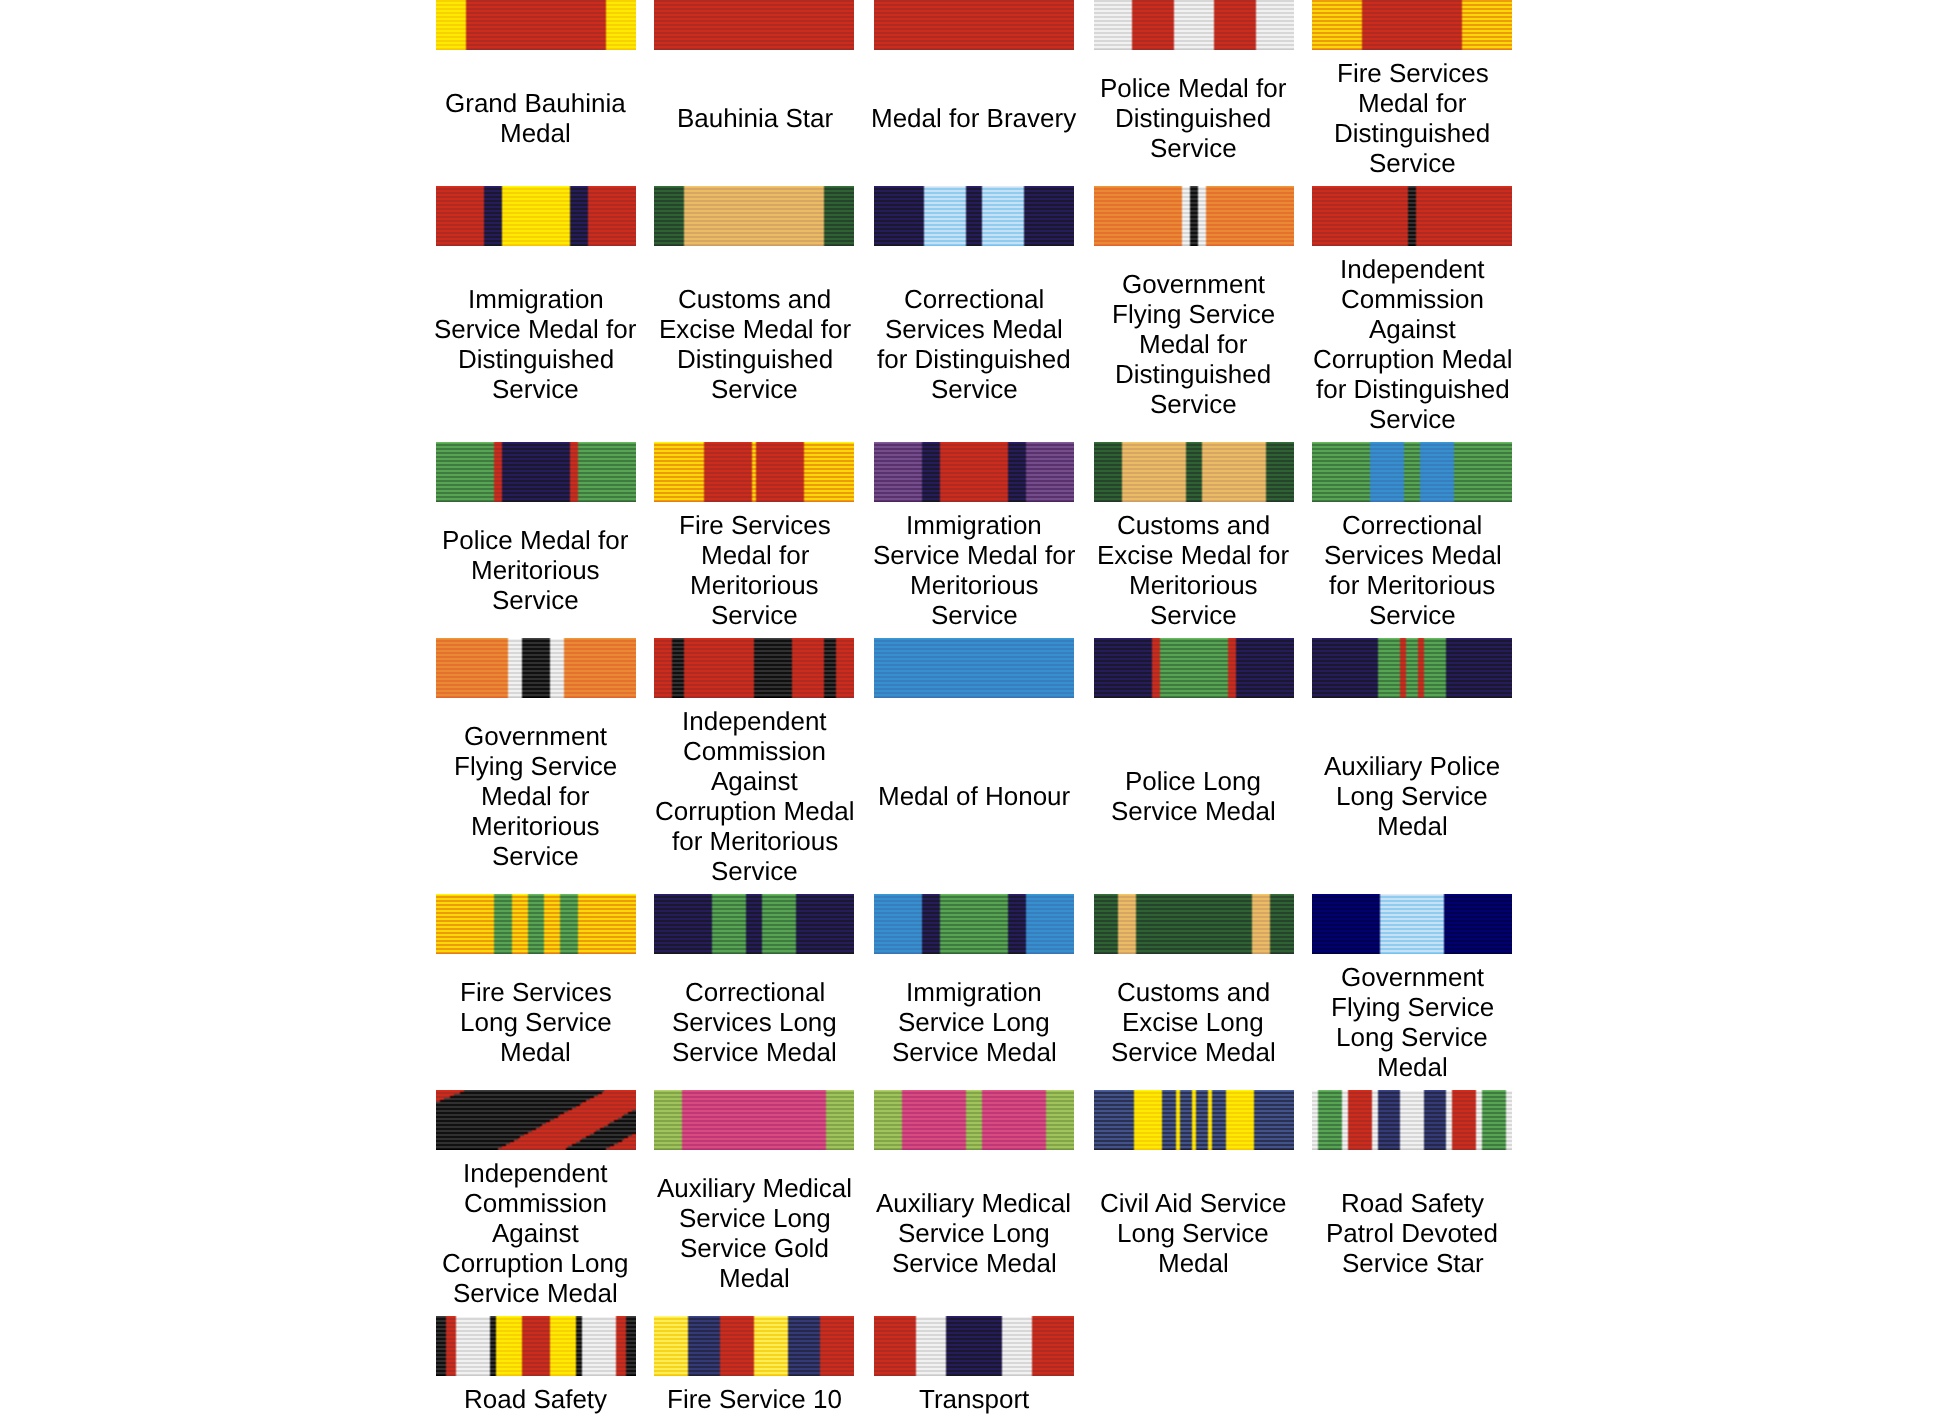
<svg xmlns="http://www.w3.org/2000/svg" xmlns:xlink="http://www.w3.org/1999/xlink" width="1947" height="1419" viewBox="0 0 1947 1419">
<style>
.cls-1{font:26px Liberation Sans;fill:#000000}
</style>
<rect width="100%" height="100%" fill="#ffffff"/>
<image xlink:href="image0.png" x="436" y="0" width="200" height="50"/>
<image xlink:href="image1.png" x="654" y="0" width="200" height="50"/>
<image xlink:href="image1.png" x="874" y="0" width="200" height="50"/>
<image xlink:href="image2.png" x="1094" y="0" width="200" height="50"/>
<image xlink:href="image3.png" x="1312" y="0" width="200" height="50"/>
<image xlink:href="image4.png" x="436" y="186" width="200" height="60"/>
<image xlink:href="image5.png" x="654" y="186" width="200" height="60"/>
<image xlink:href="image6.png" x="874" y="186" width="200" height="60"/>
<image xlink:href="image7.png" x="1094" y="186" width="200" height="60"/>
<image xlink:href="image8.png" x="1312" y="186" width="200" height="60"/>
<image xlink:href="image9.png" x="436" y="442" width="200" height="60"/>
<image xlink:href="image10.png" x="654" y="442" width="200" height="60"/>
<image xlink:href="image11.png" x="874" y="442" width="200" height="60"/>
<image xlink:href="image12.png" x="1094" y="442" width="200" height="60"/>
<image xlink:href="image13.png" x="1312" y="442" width="200" height="60"/>
<image xlink:href="image14.png" x="436" y="638" width="200" height="60"/>
<image xlink:href="image15.png" x="654" y="638" width="200" height="60"/>
<image xlink:href="image16.png" x="874" y="638" width="200" height="60"/>
<image xlink:href="image17.png" x="1094" y="638" width="200" height="60"/>
<image xlink:href="image18.png" x="1312" y="638" width="200" height="60"/>
<image xlink:href="image19.png" x="436" y="894" width="200" height="60"/>
<image xlink:href="image20.png" x="654" y="894" width="200" height="60"/>
<image xlink:href="image21.png" x="874" y="894" width="200" height="60"/>
<image xlink:href="image22.png" x="1094" y="894" width="200" height="60"/>
<image xlink:href="image23.png" x="1312" y="894" width="200" height="60"/>
<image xlink:href="image24.png" x="436" y="1090" width="200" height="60"/>
<image xlink:href="image25.png" x="654" y="1090" width="200" height="60"/>
<image xlink:href="image26.png" x="874" y="1090" width="200" height="60"/>
<image xlink:href="image27.png" x="1094" y="1090" width="200" height="60"/>
<image xlink:href="image28.png" x="1312" y="1090" width="200" height="60"/>
<image xlink:href="image29.png" x="436" y="1316" width="200" height="60"/>
<image xlink:href="image30.png" x="654" y="1316" width="200" height="60"/>
<image xlink:href="image31.png" x="874" y="1316" width="200" height="60"/>
<text class="cls-1" x="445" y="112">Grand Bauhinia</text>
<text class="cls-1" x="500" y="142">Medal</text>
<text class="cls-1" x="677" y="127">Bauhinia Star</text>
<text class="cls-1" x="871" y="127">Medal for Bravery</text>
<text class="cls-1" x="1100" y="97">Police Medal for</text>
<text class="cls-1" x="1115" y="127">Distinguished</text>
<text class="cls-1" x="1150" y="157">Service</text>
<text class="cls-1" x="1337" y="82">Fire Services</text>
<text class="cls-1" x="1358" y="112">Medal for</text>
<text class="cls-1" x="1334" y="142">Distinguished</text>
<text class="cls-1" x="1369" y="172">Service</text>
<text class="cls-1" x="468" y="308">Immigration</text>
<text class="cls-1" x="434" y="338">Service Medal for</text>
<text class="cls-1" x="458" y="368">Distinguished</text>
<text class="cls-1" x="492" y="398">Service</text>
<text class="cls-1" x="678" y="308">Customs and</text>
<text class="cls-1" x="659" y="338">Excise Medal for</text>
<text class="cls-1" x="677" y="368">Distinguished</text>
<text class="cls-1" x="711" y="398">Service</text>
<text class="cls-1" x="904" y="308">Correctional</text>
<text class="cls-1" x="885" y="338">Services Medal</text>
<text class="cls-1" x="877" y="368">for Distinguished</text>
<text class="cls-1" x="931" y="398">Service</text>
<text class="cls-1" x="1122" y="293">Government</text>
<text class="cls-1" x="1112" y="323">Flying Service</text>
<text class="cls-1" x="1139" y="353">Medal for</text>
<text class="cls-1" x="1115" y="383">Distinguished</text>
<text class="cls-1" x="1150" y="413">Service</text>
<text class="cls-1" x="1340" y="278">Independent</text>
<text class="cls-1" x="1341" y="308">Commission</text>
<text class="cls-1" x="1369" y="338">Against</text>
<text class="cls-1" x="1313" y="368">Corruption Medal</text>
<text class="cls-1" x="1316" y="398">for Distinguished</text>
<text class="cls-1" x="1369" y="428">Service</text>
<text class="cls-1" x="442" y="549">Police Medal for</text>
<text class="cls-1" x="471" y="579">Meritorious</text>
<text class="cls-1" x="492" y="609">Service</text>
<text class="cls-1" x="679" y="534">Fire Services</text>
<text class="cls-1" x="701" y="564">Medal for</text>
<text class="cls-1" x="690" y="594">Meritorious</text>
<text class="cls-1" x="711" y="624">Service</text>
<text class="cls-1" x="906" y="534">Immigration</text>
<text class="cls-1" x="873" y="564">Service Medal for</text>
<text class="cls-1" x="910" y="594">Meritorious</text>
<text class="cls-1" x="931" y="624">Service</text>
<text class="cls-1" x="1117" y="534">Customs and</text>
<text class="cls-1" x="1097" y="564">Excise Medal for</text>
<text class="cls-1" x="1129" y="594">Meritorious</text>
<text class="cls-1" x="1150" y="624">Service</text>
<text class="cls-1" x="1342" y="534">Correctional</text>
<text class="cls-1" x="1324" y="564">Services Medal</text>
<text class="cls-1" x="1329" y="594">for Meritorious</text>
<text class="cls-1" x="1369" y="624">Service</text>
<text class="cls-1" x="464" y="745">Government</text>
<text class="cls-1" x="454" y="775">Flying Service</text>
<text class="cls-1" x="481" y="805">Medal for</text>
<text class="cls-1" x="471" y="835">Meritorious</text>
<text class="cls-1" x="492" y="865">Service</text>
<text class="cls-1" x="682" y="730">Independent</text>
<text class="cls-1" x="683" y="760">Commission</text>
<text class="cls-1" x="711" y="790">Against</text>
<text class="cls-1" x="655" y="820">Corruption Medal</text>
<text class="cls-1" x="672" y="850">for Meritorious</text>
<text class="cls-1" x="711" y="880">Service</text>
<text class="cls-1" x="878" y="805">Medal of Honour</text>
<text class="cls-1" x="1125" y="790">Police Long</text>
<text class="cls-1" x="1111" y="820">Service Medal</text>
<text class="cls-1" x="1324" y="775">Auxiliary Police</text>
<text class="cls-1" x="1336" y="805">Long Service</text>
<text class="cls-1" x="1377" y="835">Medal</text>
<text class="cls-1"><tspan x="460" y="1001">Fire Services</tspan><tspan x="460" y="1031">Long Service</tspan></text>
<text class="cls-1" x="500" y="1061">Medal</text>
<text class="cls-1" x="685" y="1001">Correctional</text>
<text class="cls-1"><tspan x="672" y="1031">Services Long</tspan><tspan x="672" y="1061">Service Medal</tspan></text>
<text class="cls-1" x="906" y="1001">Immigration</text>
<text class="cls-1" x="898" y="1031">Service Long</text>
<text class="cls-1" x="892" y="1061">Service Medal</text>
<text class="cls-1" x="1117" y="1001">Customs and</text>
<text class="cls-1" x="1122" y="1031">Excise Long</text>
<text class="cls-1" x="1111" y="1061">Service Medal</text>
<text class="cls-1" x="1341" y="986">Government</text>
<text class="cls-1" x="1331" y="1016">Flying Service</text>
<text class="cls-1" x="1336" y="1046">Long Service</text>
<text class="cls-1" x="1377" y="1076">Medal</text>
<text class="cls-1" x="463" y="1182">Independent</text>
<text class="cls-1" x="464" y="1212">Commission</text>
<text class="cls-1" x="492" y="1242">Against</text>
<text class="cls-1" x="442" y="1272">Corruption Long</text>
<text class="cls-1" x="453" y="1302">Service Medal</text>
<text class="cls-1" x="657" y="1197">Auxiliary Medical</text>
<text class="cls-1" x="679" y="1227">Service Long</text>
<text class="cls-1" x="680" y="1257">Service Gold</text>
<text class="cls-1" x="719" y="1287">Medal</text>
<text class="cls-1" x="876" y="1212">Auxiliary Medical</text>
<text class="cls-1" x="898" y="1242">Service Long</text>
<text class="cls-1" x="892" y="1272">Service Medal</text>
<text class="cls-1" x="1100" y="1212">Civil Aid Service</text>
<text class="cls-1" x="1117" y="1242">Long Service</text>
<text class="cls-1" x="1158" y="1272">Medal</text>
<text class="cls-1" x="1341" y="1212">Road Safety</text>
<text class="cls-1" x="1326" y="1242">Patrol Devoted</text>
<text class="cls-1" x="1342" y="1272">Service Star</text>
<text class="cls-1" x="464" y="1408">Road Safety</text>
<text class="cls-1" x="667" y="1408">Fire Service 10</text>
<text class="cls-1" x="919" y="1408">Transport</text>
</svg>
